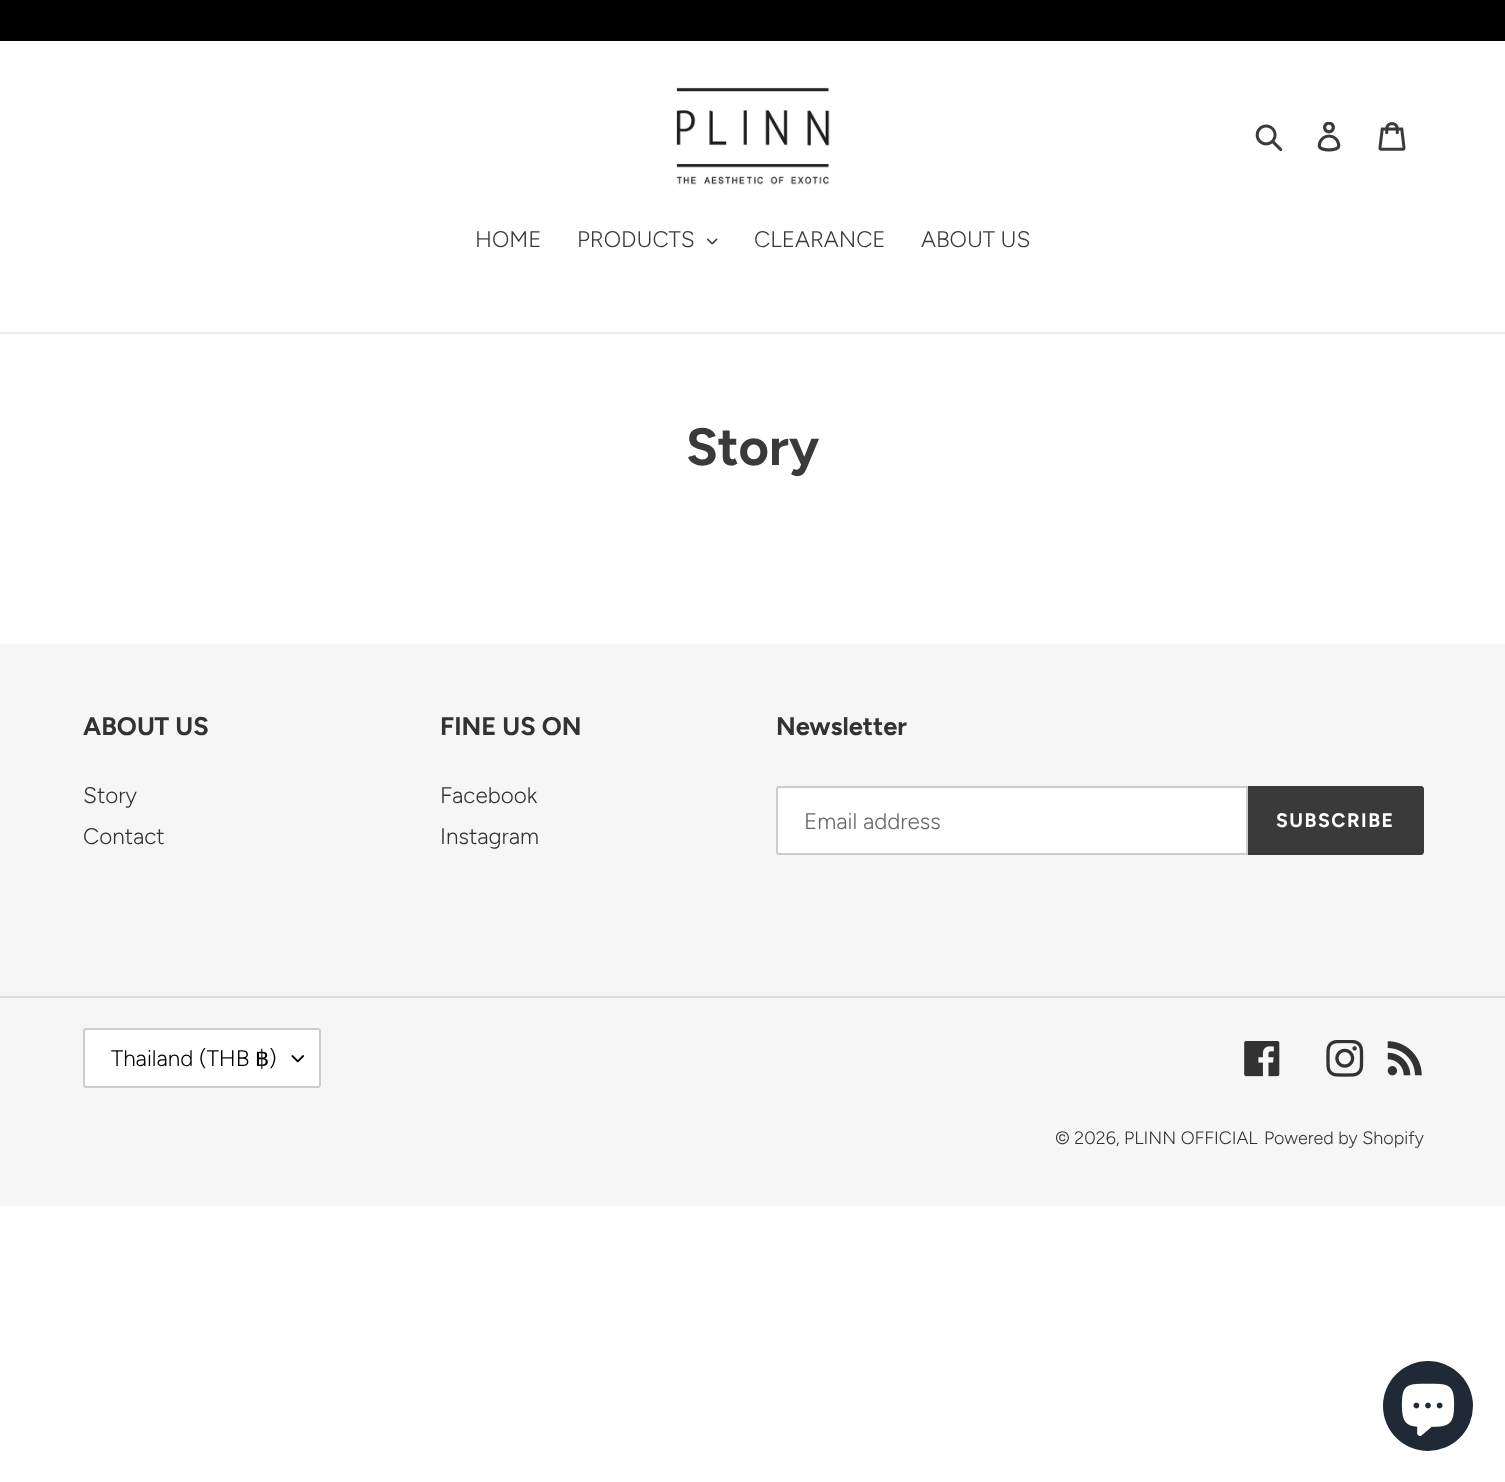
<svg xmlns="http://www.w3.org/2000/svg" xmlns:xlink="http://www.w3.org/1999/xlink" width="1505" height="1482" viewBox="0 0 1505 1482">
<style>
.cls-1{font:300 22.5px Figtree;fill:#3a3a3a}
.cls-2{font:bold 52.5px Figtree;fill:#3a3a3a}
.cls-3{font:bold 25.5px Figtree;fill:#333232}
.cls-4{font:300 22.5px Figtree;fill:#333232}
.cls-5{font:300 22.5px Figtree;fill:#666666}
.cls-6{font:bold 19.5px Figtree;letter-spacing:1.5px;fill:#ffffff}
.cls-7{font:300 22.5px Figtree;fill:#000000}
.cls-8{font:22.5px DejaVu Sans;fill:#000000}
.cls-9{font:300 18px Figtree;fill:#333232}
</style>
<rect width="100%" height="100%" fill="#ffffff"/>
<rect fill="#000000" x="0" y="0" width="1505" height="41"/>
<image xlink:href="image0.png" x="676" y="87" width="155" height="99"/>
<image xlink:href="image1.png" x="1255" y="124" width="28" height="28"/>
<image xlink:href="image2.png" x="1317" y="122" width="24" height="30"/>
<image xlink:href="image3.png" x="1378" y="122" width="28" height="29"/>
<rect fill="#ebebeb" x="0" y="332" width="1505" height="2"/>
<image xlink:href="image4.png" x="707" y="238" width="11" height="7"/>
<rect fill="#f6f6f6" x="0" y="644" width="1505" height="562"/>
<path fill="#ffffff" stroke="#cccccc" stroke-width="2" d="M779 787H1247V854H779C778 854 777 853 777 852V789C777 788 778 787 779 787Z"/>
<path fill="#3a3a3a" d="M1248 786H1421C1422.5 786 1424 787.5 1424 789V852C1424 853.5 1422.5 855 1421 855H1248Z"/>
<rect fill="#dddddd" x="0" y="996" width="1505" height="2"/>
<rect fill="#ffffff" x="83" y="1028" width="238" height="60" rx="3"/>
<image xlink:href="image5.png" x="291" y="1055" width="13" height="8"/>
<rect fill="none" stroke="#cccccc" stroke-width="2" x="84" y="1029" width="236" height="58" rx="2"/>
<image xlink:href="image6.png" x="1244" y="1041" width="36" height="36"/>
<image xlink:href="image7.png" x="1326" y="1040" width="38" height="37"/>
<image xlink:href="image8.png" x="1387" y="1041" width="35" height="35"/>
<circle fill="#202a36" cx="1428" cy="1406" r="45"/>
<image xlink:href="image9.png" x="1401" y="1383" width="54" height="53"/>
<text class="cls-1" x="475" y="247">HOME</text>
<text class="cls-1" x="577" y="247">PRODUCTS</text>
<text class="cls-1" x="754" y="247">CLEARANCE</text>
<text class="cls-1" x="921" y="247">ABOUT US</text>
<text class="cls-2" x="686" y="465">Story</text>
<text class="cls-3" x="83" y="735">ABOUT US</text>
<text class="cls-4"><tspan x="83" y="803">Story</tspan><tspan x="83" y="844">Contact</tspan></text>
<text class="cls-3" x="440" y="735">FINE US ON</text>
<text class="cls-4"><tspan x="440" y="803">Facebook</tspan><tspan x="440" y="844">Instagram</tspan></text>
<text class="cls-3" x="776" y="735">Newsletter</text>
<text class="cls-5" x="804" y="829">Email address</text>
<text class="cls-6" x="1276" y="827">SUBSCRIBE</text>
<text class="cls-7" x="111" y="1066">Thailand (THB</text>
<text class="cls-8" x="255" y="1066">฿</text>
<text class="cls-7" x="269" y="1066">)</text>
<text class="cls-9" x="1055" y="1144">© 2026, PLINN OFFICIAL</text>
<text class="cls-9" x="1264" y="1144">Powered by Shopify</text>
</svg>
